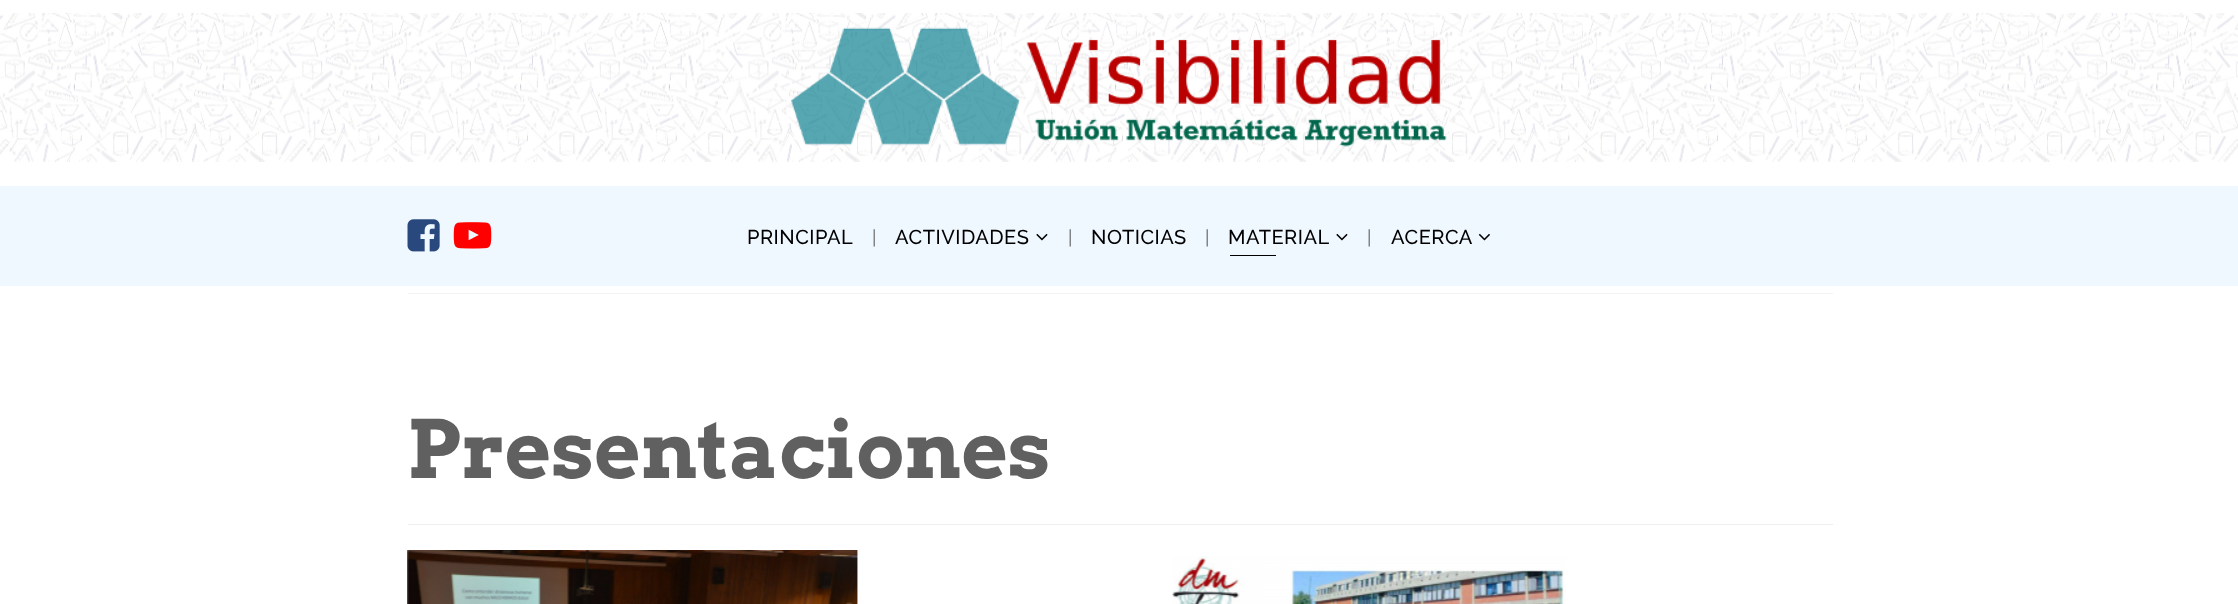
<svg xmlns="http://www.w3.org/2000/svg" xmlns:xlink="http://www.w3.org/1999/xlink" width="2238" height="604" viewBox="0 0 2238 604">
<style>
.cls-1{font:500 20px Raleway;letter-spacing:0.5px;fill:#000000}
.cls-2{font:19px Raleway;fill:#606060}
.cls-3{font:bold 80px Arvo;fill:#606060}
</style>
<rect width="100%" height="100%" fill="#ffffff"/>
<image xlink:href="image0.png" x="0" y="13" width="2238" height="149"/>
<image xlink:href="image1.png" x="791" y="27" width="656" height="120"/>
<rect fill="#f0f8ff" x="0" y="186" width="2238" height="100"/>
<rect fill="#f3f3f3" x="408" y="293" width="1425" height="1"/>
<image xlink:href="image2.png" x="407" y="219" width="33" height="33"/>
<image xlink:href="image3.png" x="453" y="222" width="39" height="27"/>
<image xlink:href="image4.png" x="1036" y="233" width="12" height="8"/>
<image xlink:href="image4.png" x="1336" y="233" width="12" height="8"/>
<rect fill="#000000" x="1230" y="255" width="46" height="1"/>
<image xlink:href="image5.png" x="1478" y="233" width="12" height="8"/>
<rect fill="#eeeeee" x="408" y="524" width="1425" height="1"/>
<image xlink:href="image6.png" x="407" y="550" width="451" height="54"/>
<image xlink:href="image7.png" x="1172" y="556" width="394" height="48"/>
<text class="cls-1" x="747" y="244">PRINCIPAL</text>
<text class="cls-2" x="872" y="244">|</text>
<text class="cls-1" x="895" y="244">ACTIVIDADES</text>
<text class="cls-2" x="1068" y="244">|</text>
<text class="cls-1" x="1091" y="244">NOTICIAS</text>
<text class="cls-2" x="1205" y="244">|</text>
<text class="cls-1" x="1228" y="244">MATERIAL</text>
<text class="cls-2" x="1367" y="244">|</text>
<text class="cls-1" x="1391" y="244">ACERCA</text>
<text class="cls-3" x="407" y="478">Presentaciones</text>
</svg>
